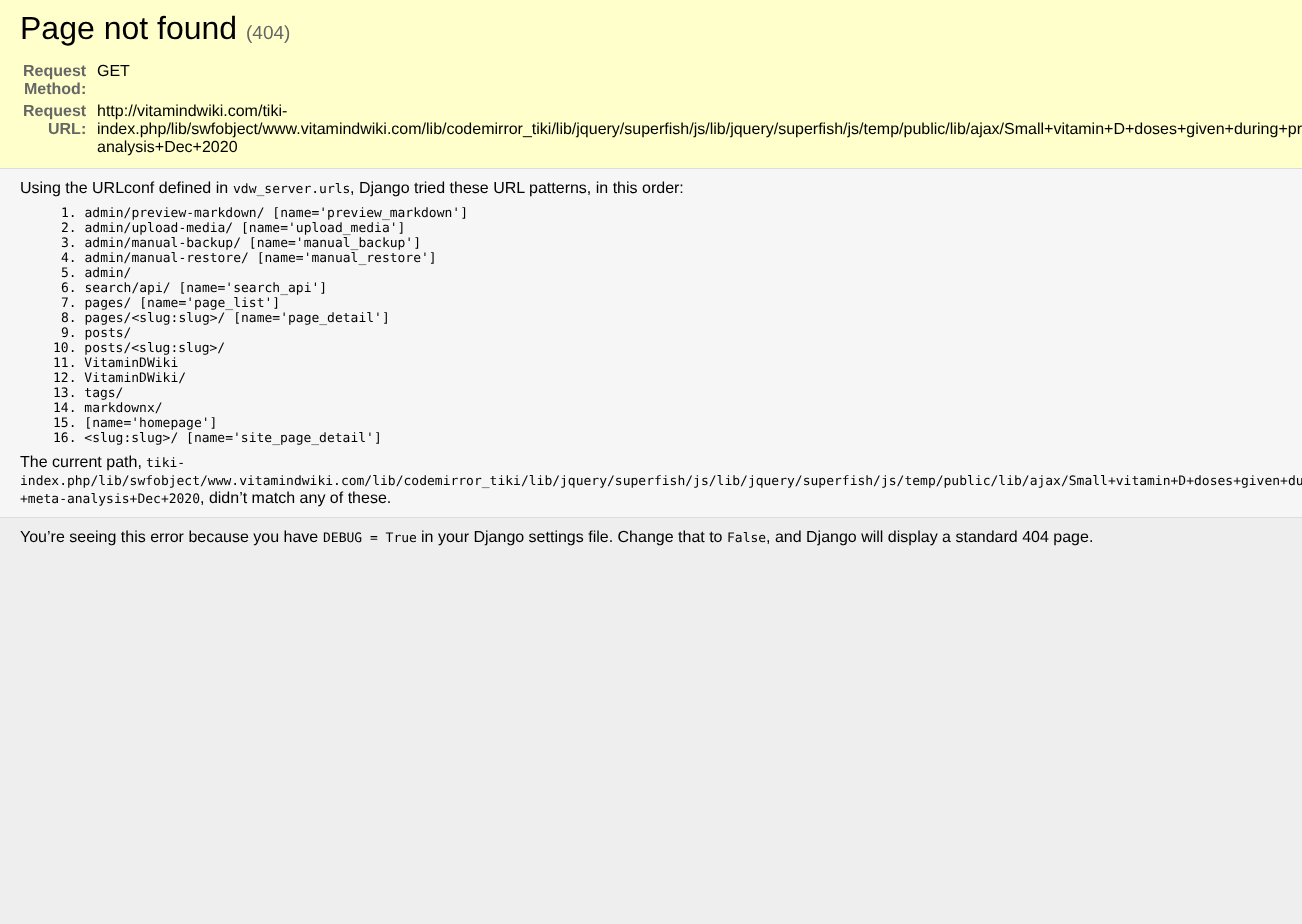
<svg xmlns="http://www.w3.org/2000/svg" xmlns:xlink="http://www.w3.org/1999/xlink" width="1302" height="924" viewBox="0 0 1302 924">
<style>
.cls-1{font:32px Liberation Sans;fill:#000000}
.cls-2{font:19px Liberation Sans;fill:#666666}
.cls-3{font:bold 16px Liberation Sans;fill:#666666}
.cls-4{font:16px Liberation Sans;fill:#000000}
.cls-5{font:13px DejaVu Sans Mono;fill:#000000}
</style>
<rect width="100%" height="100%" fill="#eeeeee"/>
<rect fill="#ffffcc" x="0" y="0" width="1302" height="168"/>
<rect fill="#dddddd" x="0" y="168" width="1302" height="1"/>
<rect fill="#f6f6f6" x="0" y="169" width="1302" height="348"/>
<rect fill="#dddddd" x="0" y="517" width="1302" height="1"/>
<text class="cls-1" x="20" y="39">Page not found</text>
<text class="cls-2" x="246" y="39">(404)</text>
<text class="cls-3" x="23" y="76">Request</text>
<text class="cls-3" x="24" y="94">Method:</text>
<text class="cls-4" x="97" y="76">GET</text>
<text class="cls-3" x="23" y="116">Request</text>
<text class="cls-3" x="48" y="134">URL:</text>
<text class="cls-4"><tspan x="97" y="116">http://vitamindwiki.com/tiki-</tspan><tspan x="97" y="134">index.php/lib/swfobject/www.vitamindwiki.com/lib/codemirror_tiki/lib/jquery/superfish/js/lib/jquery/superfish/js/temp/public/lib/ajax/Small+vitamin+D+doses+given+during+pr</tspan><tspan x="97" y="152">analysis+Dec+2020</tspan></text>
<text class="cls-4" x="20" y="193">Using the URLconf defined in</text>
<text class="cls-5" x="233" y="193">vdw_server.urls</text>
<text class="cls-4" x="350" y="193">, Django tried these URL patterns, in this order:</text>
<text class="cls-5"><tspan x="61" y="217">1. admin/preview-markdown/ [name='preview_markdown']</tspan><tspan x="61" y="232">2. admin/upload-media/ [name='upload_media']</tspan><tspan x="61" y="247">3. admin/manual-backup/ [name='manual_backup']</tspan><tspan x="61" y="262">4. admin/manual-restore/ [name='manual_restore']</tspan><tspan x="61" y="277">5. admin/</tspan><tspan x="61" y="292">6. search/api/ [name='search_api']</tspan><tspan x="61" y="307">7. pages/ [name='page_list']</tspan><tspan x="61" y="322">8. pages/&lt;slug:slug&gt;/ [name='page_detail']</tspan><tspan x="61" y="337">9. posts/</tspan></text>
<text class="cls-5"><tspan x="53" y="352">10. posts/&lt;slug:slug&gt;/</tspan><tspan x="53" y="367">11. VitaminDWiki</tspan><tspan x="53" y="382">12. VitaminDWiki/</tspan><tspan x="53" y="397">13. tags/</tspan><tspan x="53" y="412">14. markdownx/</tspan><tspan x="53" y="427">15. [name='homepage']</tspan><tspan x="53" y="442">16. &lt;slug:slug&gt;/ [name='site_page_detail']</tspan></text>
<text class="cls-4" x="20" y="467">The current path,</text>
<text class="cls-5" x="146" y="467">tiki-</text>
<text class="cls-5"><tspan x="20" y="485">index.php/lib/swfobject/www.vitamindwiki.com/lib/codemirror_tiki/lib/jquery/superfish/js/lib/jquery/superfish/js/temp/public/lib/ajax/Small+vitamin+D+doses+given+du</tspan><tspan x="20" y="503">+meta-analysis+Dec+2020</tspan></text>
<text class="cls-4" x="200" y="503">, didn’t match any of these.</text>
<text class="cls-4" x="20" y="542">You’re seeing this error because you have</text>
<text class="cls-5" x="323" y="542">DEBUG = True</text>
<text class="cls-4" x="421" y="542">in your Django settings file. Change that to</text>
<text class="cls-5" x="727" y="542">False</text>
<text class="cls-4" x="766" y="542">, and Django will display a standard 404 page.</text>
</svg>
